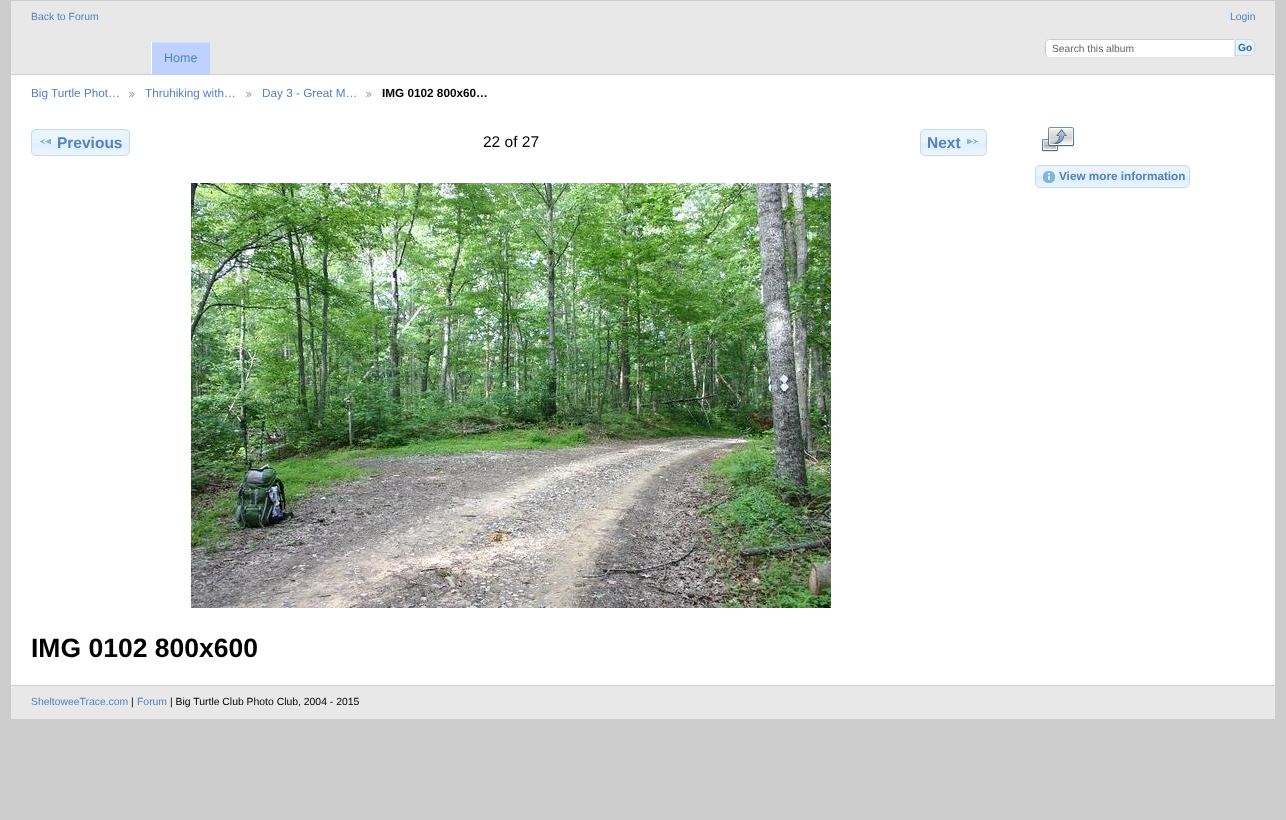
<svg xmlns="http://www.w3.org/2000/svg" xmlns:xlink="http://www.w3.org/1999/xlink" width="1286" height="820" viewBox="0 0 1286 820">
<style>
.cls-1{font:10.4px Liberation Sans;fill:#5382bf}
.cls-2{font:10.25px Liberation Sans;fill:#666666}
.cls-3{font:bold 10.25px Liberation Sans;fill:#2e6e9e}
.cls-4{font:12.5px Liberation Sans;fill:#5382bf}
.cls-5{font:11.75px Liberation Sans;fill:#5382bf}
.cls-6{font:bold 11.75px Liberation Sans;fill:#000000}
.cls-7{font:bold 15.5px Liberation Sans;fill:#5382bf}
.cls-8{font:15.5px Liberation Sans;fill:#000000}
.cls-9{font:bold 26.5px Liberation Sans;fill:#000000}
.cls-10{font:bold 11.75px Liberation Sans;fill:#5382bf}
.cls-11{font:10.4px Liberation Sans;fill:#000000}
</style>
<rect width="100%" height="100%" fill="#cccccc"/>
<rect fill="#ffffff" x="11" y="75" width="1264" height="610"/>
<rect fill="#e8e8e8" x="11" y="1" width="1264" height="73"/>
<path fill="#ffffff" d="M1050 39H1235V58H1050C1047 58 1045 56 1045 53V44C1045 41 1047 39 1050 39Z"/>
<path fill="#cccccc" d="M1050 39C1048 39 1047 40 1046 40L1047 41C1048 40 1049 40 1050 40H1234L1235 39Z"/>
<path fill="#e8e8e8" d="M1235 39L1234 40V57L1235 58Z"/>
<path fill="#e8e8e8" d="M1235 58L1234 57H1049L1047 56L1046 57C1047 58 1048 58 1050 58Z"/>
<path fill="#cccccc" d="M1045 44C1045 47 1044 54.5 1046.5 56.5L1047 56L1046 54V43.5C1046 42.5 1046.5 41.5 1047 41L1046.5 40.5C1045.5 41 1045 42.5 1045 44Z"/>
<image xlink:href="image0.png" x="1236" y="39" width="19" height="17"/>
<path fill="none" stroke="#c5dbec" d="M1235.5 39.5H1250C1252.5 39.5 1254.5 41.5 1254.5 44V51C1254.5 53.5 1252.5 55.5 1250 55.5H1235.5Z"/>
<rect fill="#bdd2ff" x="152" y="43" width="58" height="31"/>
<rect fill="#cfdeff" x="151" y="42" width="59" height="1"/>
<rect fill="#ffffff" x="151" y="42" width="1" height="32"/>
<image xlink:href="image1.png" x="129" y="92" width="6" height="5"/>
<image xlink:href="image1.png" x="246" y="92" width="6" height="5"/>
<image xlink:href="image1.png" x="366" y="92" width="6" height="5"/>
<image xlink:href="image2.png" x="31" y="129" width="99" height="27"/>
<rect fill="none" stroke="#c5dbec" x="31.5" y="129.5" width="98" height="26" rx="4.5"/>
<image xlink:href="image3.png" x="40" y="139" width="11" height="5"/>
<image xlink:href="image4.png" x="920" y="129" width="67" height="27"/>
<rect fill="none" stroke="#c5dbec" x="920.5" y="129.5" width="66" height="26" rx="4.5"/>
<image xlink:href="image5.png" x="967" y="139" width="11" height="5"/>
<image xlink:href="image6.png" x="191" y="183" width="640" height="425"/>
<image xlink:href="image7.png" x="1042" y="127" width="32" height="25"/>
<image xlink:href="image8.png" x="1035" y="165" width="155" height="23"/>
<rect fill="none" stroke="#c5dbec" x="1035.5" y="165.5" width="154" height="22" rx="4.5"/>
<image xlink:href="image9.png" x="1043" y="171" width="12" height="12"/>
<rect fill="#e8e8e8" x="11" y="686" width="1264" height="33"/>
<text class="cls-1" x="31" y="20">Back to Forum</text>
<text class="cls-1" x="1230" y="20">Login</text>
<text class="cls-2" x="1052" y="52">Search this album</text>
<text class="cls-3" x="1238" y="51">Go</text>
<text class="cls-4" x="164" y="62">Home</text>
<text class="cls-5" x="31" y="97">Big Turtle Phot…</text>
<text class="cls-5" x="145" y="97">Thruhiking with…</text>
<text class="cls-5" x="262" y="97">Day 3 - Great M…</text>
<text class="cls-6" x="382" y="97">IMG 0102 800x60…</text>
<text class="cls-7" x="57" y="148">Previous</text>
<text class="cls-8" x="483" y="147">22 of 27</text>
<text class="cls-7" x="927" y="148">Next</text>
<text class="cls-9" x="31" y="657">IMG 0102 800x600</text>
<text class="cls-10" x="1059" y="180">View more information</text>
<text class="cls-1" x="31" y="705">SheltoweeTrace.com</text>
<text class="cls-11" x="131" y="705">|</text>
<text class="cls-1" x="137" y="705">Forum</text>
<text class="cls-11" x="170" y="705">| Big Turtle Club Photo Club, 2004 - 2015</text>
</svg>
